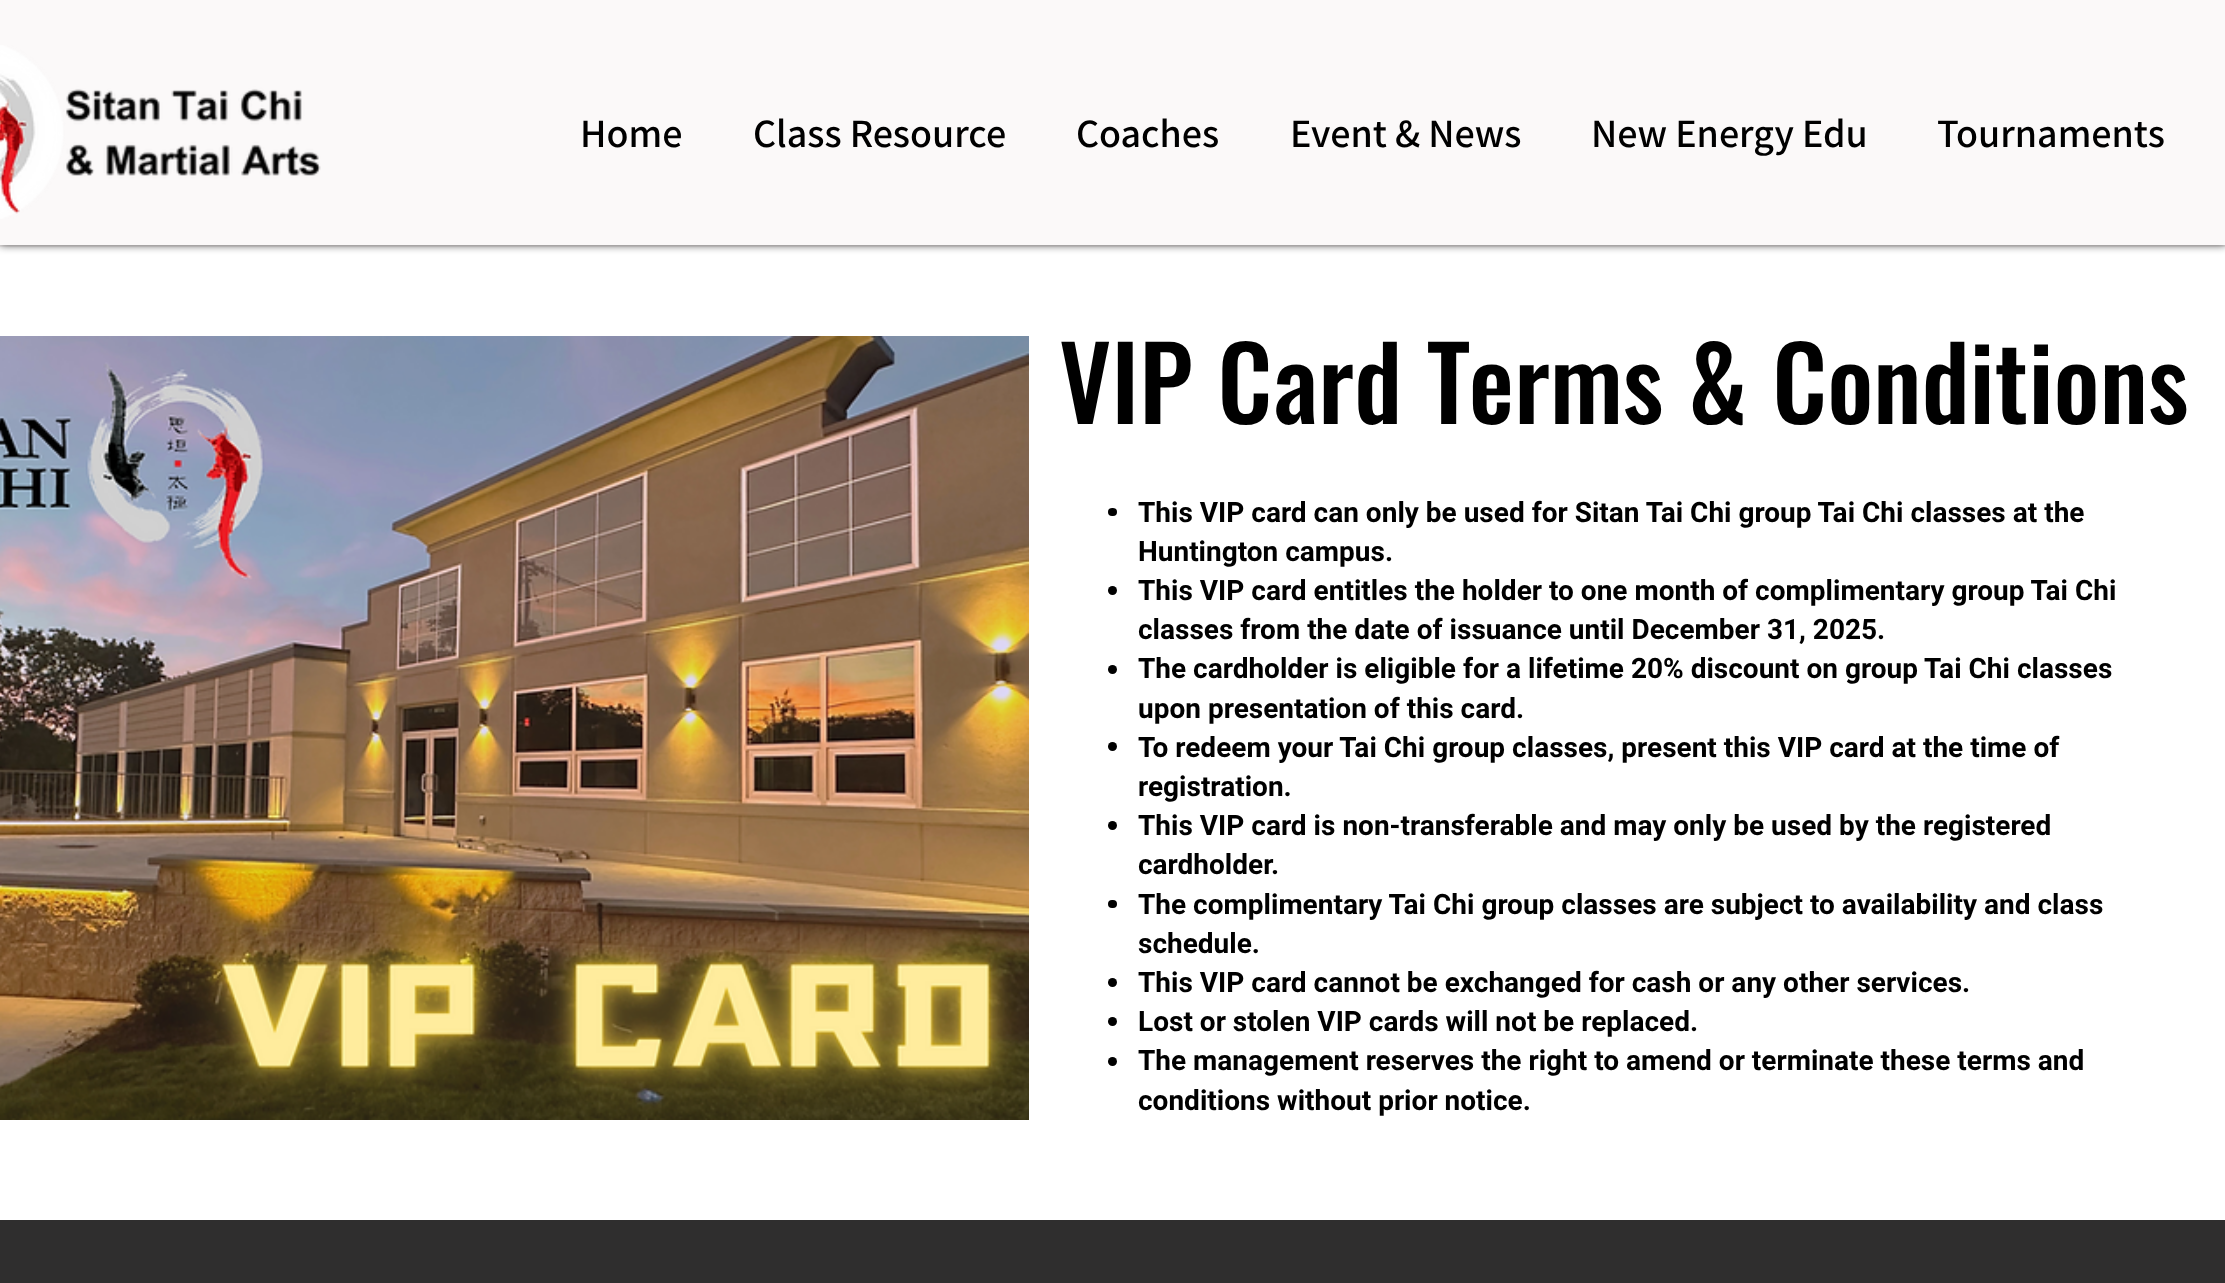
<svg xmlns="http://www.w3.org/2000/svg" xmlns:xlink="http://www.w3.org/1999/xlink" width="2225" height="1283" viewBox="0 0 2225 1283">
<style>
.cls-1{font:600 40.25px Assistant;fill:#000000}
.cls-2{font:500 101.5px Oswald;fill:#000000}
.cls-3{font:bold 28px Roboto;fill:#000000}
</style>
<rect width="100%" height="100%" fill="#f5f2f2"/>
<rect fill="#ffffff" x="0" y="247" width="2225" height="973"/>
<rect fill="#000000" fill-opacity="0.7" filter="blur(4.5px)" x="0" y="0" width="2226" height="245"/>
<rect fill="#fbf9f9" x="0" y="0" width="2225" height="245"/>
<image xlink:href="image0.png" x="0" y="45" width="321" height="174"/>
<image xlink:href="image1.png" x="0" y="336" width="1029" height="784"/>
<rect fill="#000000" x="1108" y="508" width="9" height="8" rx="4"/>
<circle fill="#000000" cx="1112.5" cy="590.5" r="4.5"/>
<circle fill="#000000" cx="1112.5" cy="669.5" r="4.5"/>
<circle fill="#000000" cx="1112.5" cy="746.5" r="4.5"/>
<circle fill="#000000" cx="1112.5" cy="825.5" r="4.5"/>
<rect fill="#000000" x="1108" y="900" width="9" height="8" rx="4"/>
<circle fill="#000000" cx="1112.5" cy="982.5" r="4.5"/>
<circle fill="#000000" cx="1112.5" cy="1021.5" r="4.5"/>
<circle fill="#000000" cx="1112.5" cy="1061.5" r="4.5"/>
<rect fill="#2f2e2e" x="0" y="1220" width="2225" height="63"/>
<text class="cls-1" x="580" y="147">Home</text>
<text class="cls-1" x="753" y="147">Class Resource</text>
<text class="cls-1" x="1076" y="147">Coaches</text>
<text class="cls-1" x="1290" y="147">Event &amp; News</text>
<text class="cls-1" x="1591" y="147">New Energy Edu</text>
<text class="cls-1" x="1937" y="147">Tournaments</text>
<text class="cls-2" x="1059" y="424">VIP Card Terms &amp; Conditions</text>
<text class="cls-3"><tspan x="1138" y="522">This VIP card can only be used for Sitan Tai Chi group Tai Chi classes at the</tspan><tspan x="1138" y="561">Huntington campus.</tspan><tspan x="1138" y="600">This VIP card entitles the holder to one month of complimentary group Tai Chi</tspan><tspan x="1138" y="639">classes from the date of issuance until December 31, 2025.</tspan><tspan x="1138" y="678">The cardholder is eligible for a lifetime 20% discount on group Tai Chi classes</tspan><tspan x="1138" y="718">upon presentation of this card.</tspan><tspan x="1138" y="757">To redeem your Tai Chi group classes, present this VIP card at the time of</tspan><tspan x="1138" y="796">registration.</tspan><tspan x="1138" y="835">This VIP card is non-transferable and may only be used by the registered</tspan><tspan x="1138" y="874">cardholder.</tspan><tspan x="1138" y="914">The complimentary Tai Chi group classes are subject to availability and class</tspan><tspan x="1138" y="953">schedule.</tspan><tspan x="1138" y="992">This VIP card cannot be exchanged for cash or any other services.</tspan><tspan x="1138" y="1031">Lost or stolen VIP cards will not be replaced.</tspan><tspan x="1138" y="1070">The management reserves the right to amend or terminate these terms and</tspan><tspan x="1138" y="1110">conditions without prior notice.</tspan></text>
</svg>
